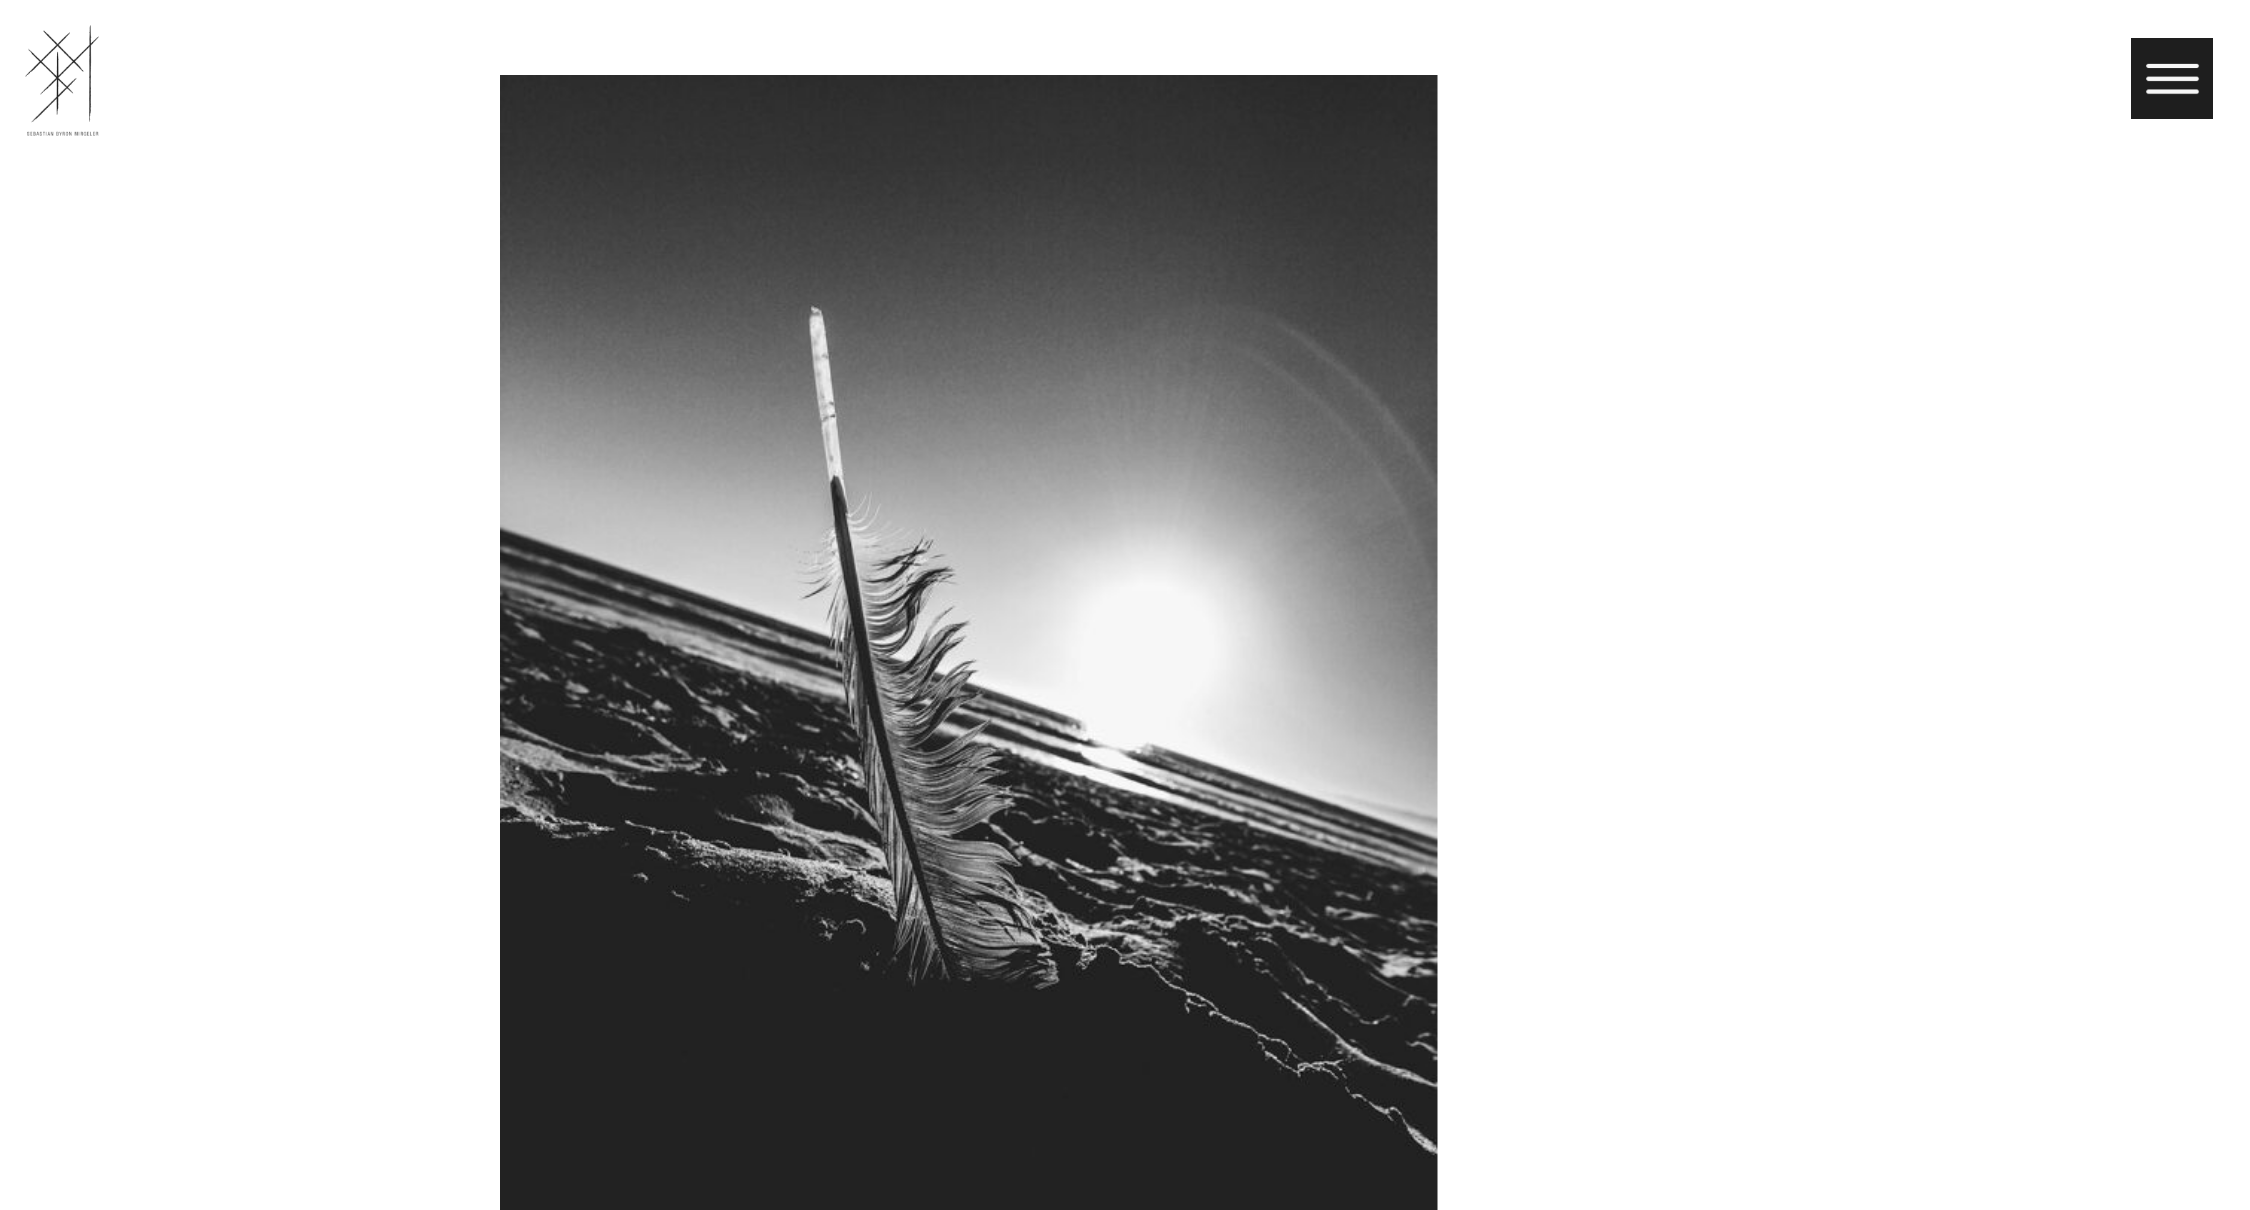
<svg xmlns="http://www.w3.org/2000/svg" xmlns:xlink="http://www.w3.org/1999/xlink" width="2250" height="1210" viewBox="0 0 2250 1210">
<rect width="100%" height="100%" fill="#ffffff"/>
<image xlink:href="image0.png" x="25" y="25" width="74" height="111"/>
<image xlink:href="image1.png" x="500" y="75" width="938" height="1135"/>
<rect fill="#1e1e1e" x="2131" y="38" width="82" height="81"/>
<image xlink:href="image2.png" x="2146" y="63" width="54" height="32"/>
</svg>
